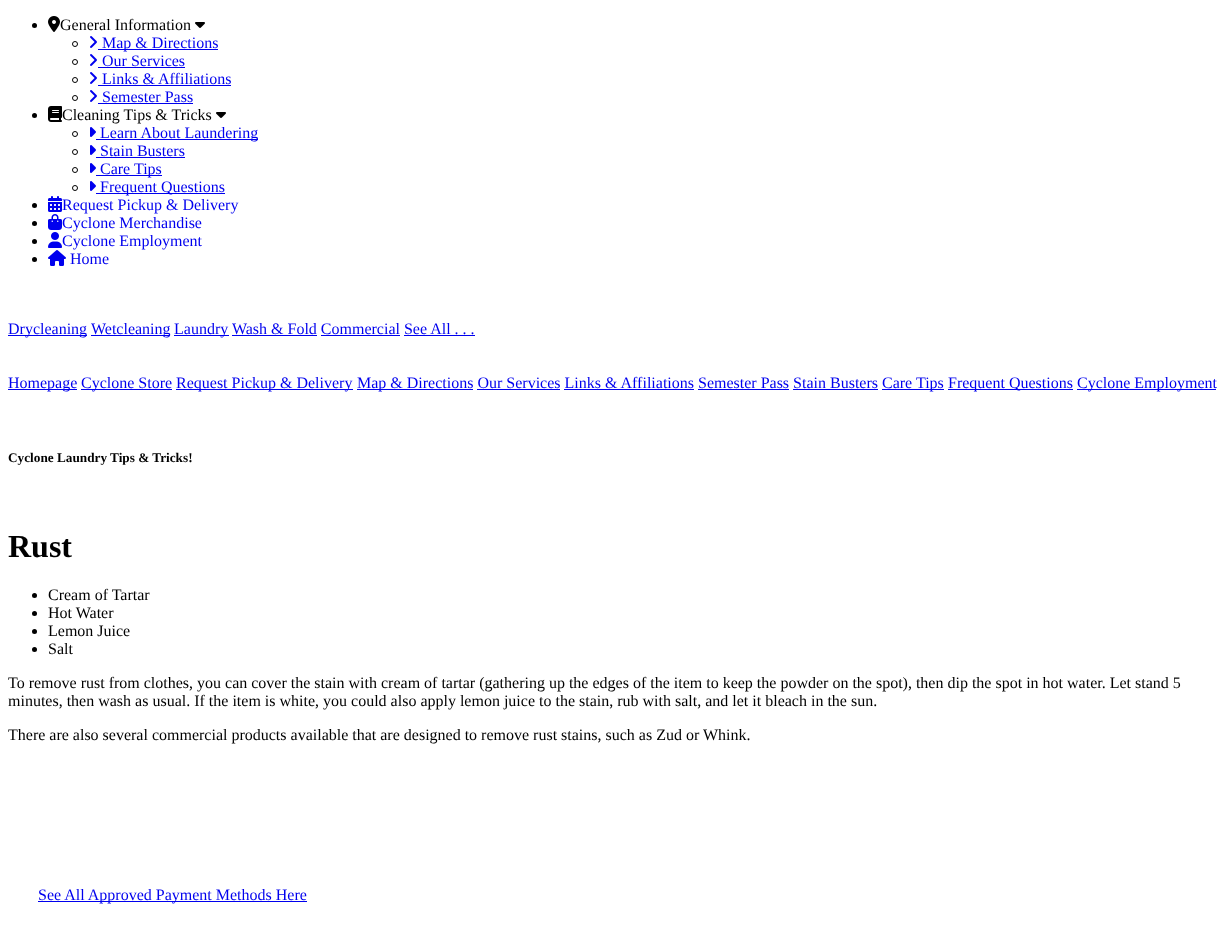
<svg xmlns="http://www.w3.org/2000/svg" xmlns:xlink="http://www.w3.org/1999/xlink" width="1232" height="927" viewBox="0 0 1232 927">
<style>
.cls-1{font:16px Liberation Serif;fill:#000000}
.cls-2{font:16px Liberation Serif;fill:#0000ee}
.cls-3{font:bold 13.25px Liberation Serif;fill:#000000}
.cls-4{font:bold 32px Liberation Serif;fill:#000000}
</style>
<rect width="100%" height="100%" fill="#ffffff"/>
<circle fill="#000000" cx="34.5" cy="25.5" r="2.5"/>
<image xlink:href="image0.png" x="48" y="16" width="12" height="16"/>
<image xlink:href="image1.png" x="195" y="22" width="10" height="6"/>
<circle fill="none" stroke="#000000" cx="75" cy="44" r="2.5"/>
<image xlink:href="image2.png" x="90" y="36" width="7" height="12"/>
<rect fill="#0000ee" x="98" y="49" width="120" height="1"/>
<circle fill="none" stroke="#000000" cx="75" cy="62" r="2.5"/>
<image xlink:href="image2.png" x="90" y="54" width="7" height="12"/>
<rect fill="#0000ee" x="98" y="67" width="87" height="1"/>
<circle fill="none" stroke="#000000" cx="75" cy="80" r="2.5"/>
<image xlink:href="image2.png" x="90" y="72" width="7" height="12"/>
<rect fill="#0000ee" x="98" y="85" width="133" height="1"/>
<circle fill="none" stroke="#000000" cx="75" cy="98" r="2.5"/>
<image xlink:href="image2.png" x="90" y="90" width="7" height="12"/>
<rect fill="#0000ee" x="98" y="103" width="95" height="1"/>
<circle fill="#000000" cx="34.5" cy="115.5" r="2.5"/>
<image xlink:href="image3.png" x="48" y="106" width="14" height="16"/>
<image xlink:href="image1.png" x="216" y="112" width="10" height="6"/>
<circle fill="none" stroke="#000000" cx="75" cy="134" r="2.5"/>
<image xlink:href="image4.png" x="90" y="127" width="6" height="10"/>
<rect fill="#0000ee" x="96" y="139" width="162" height="1"/>
<circle fill="none" stroke="#000000" cx="75" cy="152" r="2.5"/>
<image xlink:href="image4.png" x="90" y="145" width="6" height="10"/>
<rect fill="#0000ee" x="96" y="157" width="89" height="1"/>
<circle fill="none" stroke="#000000" cx="75" cy="170" r="2.5"/>
<image xlink:href="image4.png" x="90" y="163" width="6" height="10"/>
<rect fill="#0000ee" x="96" y="175" width="66" height="1"/>
<circle fill="none" stroke="#000000" cx="75" cy="188" r="2.5"/>
<image xlink:href="image4.png" x="90" y="181" width="6" height="10"/>
<rect fill="#0000ee" x="96" y="193" width="129" height="1"/>
<circle fill="#000000" cx="34.5" cy="205.5" r="2.5"/>
<image xlink:href="image5.png" x="48" y="196" width="14" height="16"/>
<circle fill="#000000" cx="34.5" cy="223.5" r="2.5"/>
<image xlink:href="image6.png" x="48" y="214" width="14" height="16"/>
<circle fill="#000000" cx="34.5" cy="241.5" r="2.5"/>
<image xlink:href="image7.png" x="48" y="232" width="14" height="16"/>
<circle fill="#000000" cx="34.5" cy="259.5" r="2.5"/>
<image xlink:href="image8.png" x="48" y="250" width="18" height="16"/>
<rect fill="#0000ee" x="8" y="335" width="79" height="1"/>
<rect fill="#0000ee" x="91" y="335" width="79" height="1"/>
<rect fill="#0000ee" x="174" y="335" width="55" height="1"/>
<rect fill="#0000ee" x="232" y="335" width="85" height="1"/>
<rect fill="#0000ee" x="321" y="335" width="79" height="1"/>
<rect fill="#0000ee" x="404" y="335" width="71" height="1"/>
<rect fill="#0000ee" x="8" y="389" width="69" height="1"/>
<rect fill="#0000ee" x="81" y="389" width="91" height="1"/>
<rect fill="#0000ee" x="176" y="389" width="177" height="1"/>
<rect fill="#0000ee" x="357" y="389" width="116" height="1"/>
<rect fill="#0000ee" x="882" y="389" width="62" height="1"/>
<rect fill="#0000ee" x="948" y="389" width="125" height="1"/>
<rect fill="#0000ee" x="1077" y="389" width="139" height="1"/>
<rect fill="#0000ee" x="477" y="389" width="83" height="1"/>
<rect fill="#0000ee" x="564" y="389" width="130" height="1"/>
<rect fill="#0000ee" x="698" y="389" width="91" height="1"/>
<rect fill="#0000ee" x="793" y="389" width="85" height="1"/>
<circle fill="#000000" cx="34.5" cy="595.5" r="2.5"/>
<circle fill="#000000" cx="34.5" cy="613.5" r="2.5"/>
<circle fill="#000000" cx="34.5" cy="631.5" r="2.5"/>
<circle fill="#000000" cx="34.5" cy="649.5" r="2.5"/>
<rect fill="#0000ee" x="38" y="901" width="269" height="1"/>
<text class="cls-1" x="60" y="30">General Information</text>
<text class="cls-2"><tspan x="102" y="48">Map &amp; Directions</tspan><tspan x="102" y="66">Our Services</tspan><tspan x="102" y="84">Links &amp; Affiliations</tspan><tspan x="102" y="102">Semester Pass</tspan></text>
<text class="cls-1" x="62" y="120">Cleaning Tips &amp; Tricks</text>
<text class="cls-2"><tspan x="100" y="138">Learn About Laundering</tspan><tspan x="100" y="156">Stain Busters</tspan><tspan x="100" y="174">Care Tips</tspan><tspan x="100" y="192">Frequent Questions</tspan></text>
<text class="cls-2"><tspan x="62" y="210">Request Pickup &amp; Delivery</tspan><tspan x="62" y="228">Cyclone Merchandise</tspan><tspan x="62" y="246">Cyclone Employment</tspan></text>
<text class="cls-2" x="70" y="264">Home</text>
<text class="cls-2" x="8" y="334">Drycleaning</text>
<text class="cls-2" x="91" y="334">Wetcleaning</text>
<text class="cls-2" x="174" y="334">Laundry Wash &amp; Fold Commercial See All . . .</text>
<text class="cls-2" x="8" y="388">Homepage</text>
<text class="cls-2" x="81" y="388">Cyclone Store</text>
<text class="cls-2" x="176" y="388">Request Pickup &amp; Delivery</text>
<text class="cls-2" x="357" y="388">Map &amp; Directions Our Services Links &amp; Affiliations Semester Pass Stain Busters</text>
<text class="cls-2" x="882" y="388">Care Tips</text>
<text class="cls-2" x="948" y="388">Frequent Questions</text>
<text class="cls-2" x="1077" y="388">Cyclone Employment</text>
<text class="cls-3" x="8" y="462">Cyclone Laundry Tips &amp; Tricks!</text>
<text class="cls-4" x="8" y="557">Rust</text>
<text class="cls-1"><tspan x="48" y="600">Cream of Tartar</tspan><tspan x="48" y="618">Hot Water</tspan><tspan x="48" y="636">Lemon Juice</tspan><tspan x="48" y="654">Salt</tspan></text>
<text class="cls-1"><tspan x="8" y="688">To remove rust from clothes, you can cover the stain with cream of tartar (gathering up the edges of the item to keep the powder on the spot), then dip the spot in hot water. Let stand 5</tspan><tspan x="8" y="706">minutes, then wash as usual. If the item is white, you could also apply lemon juice to the stain, rub with salt, and let it bleach in the sun.</tspan></text>
<text class="cls-1" x="8" y="740">There are also several commercial products available that are designed to remove rust stains, such as Zud or Whink.</text>
<text class="cls-2" x="38" y="900">See All Approved Payment Methods Here</text>
</svg>
